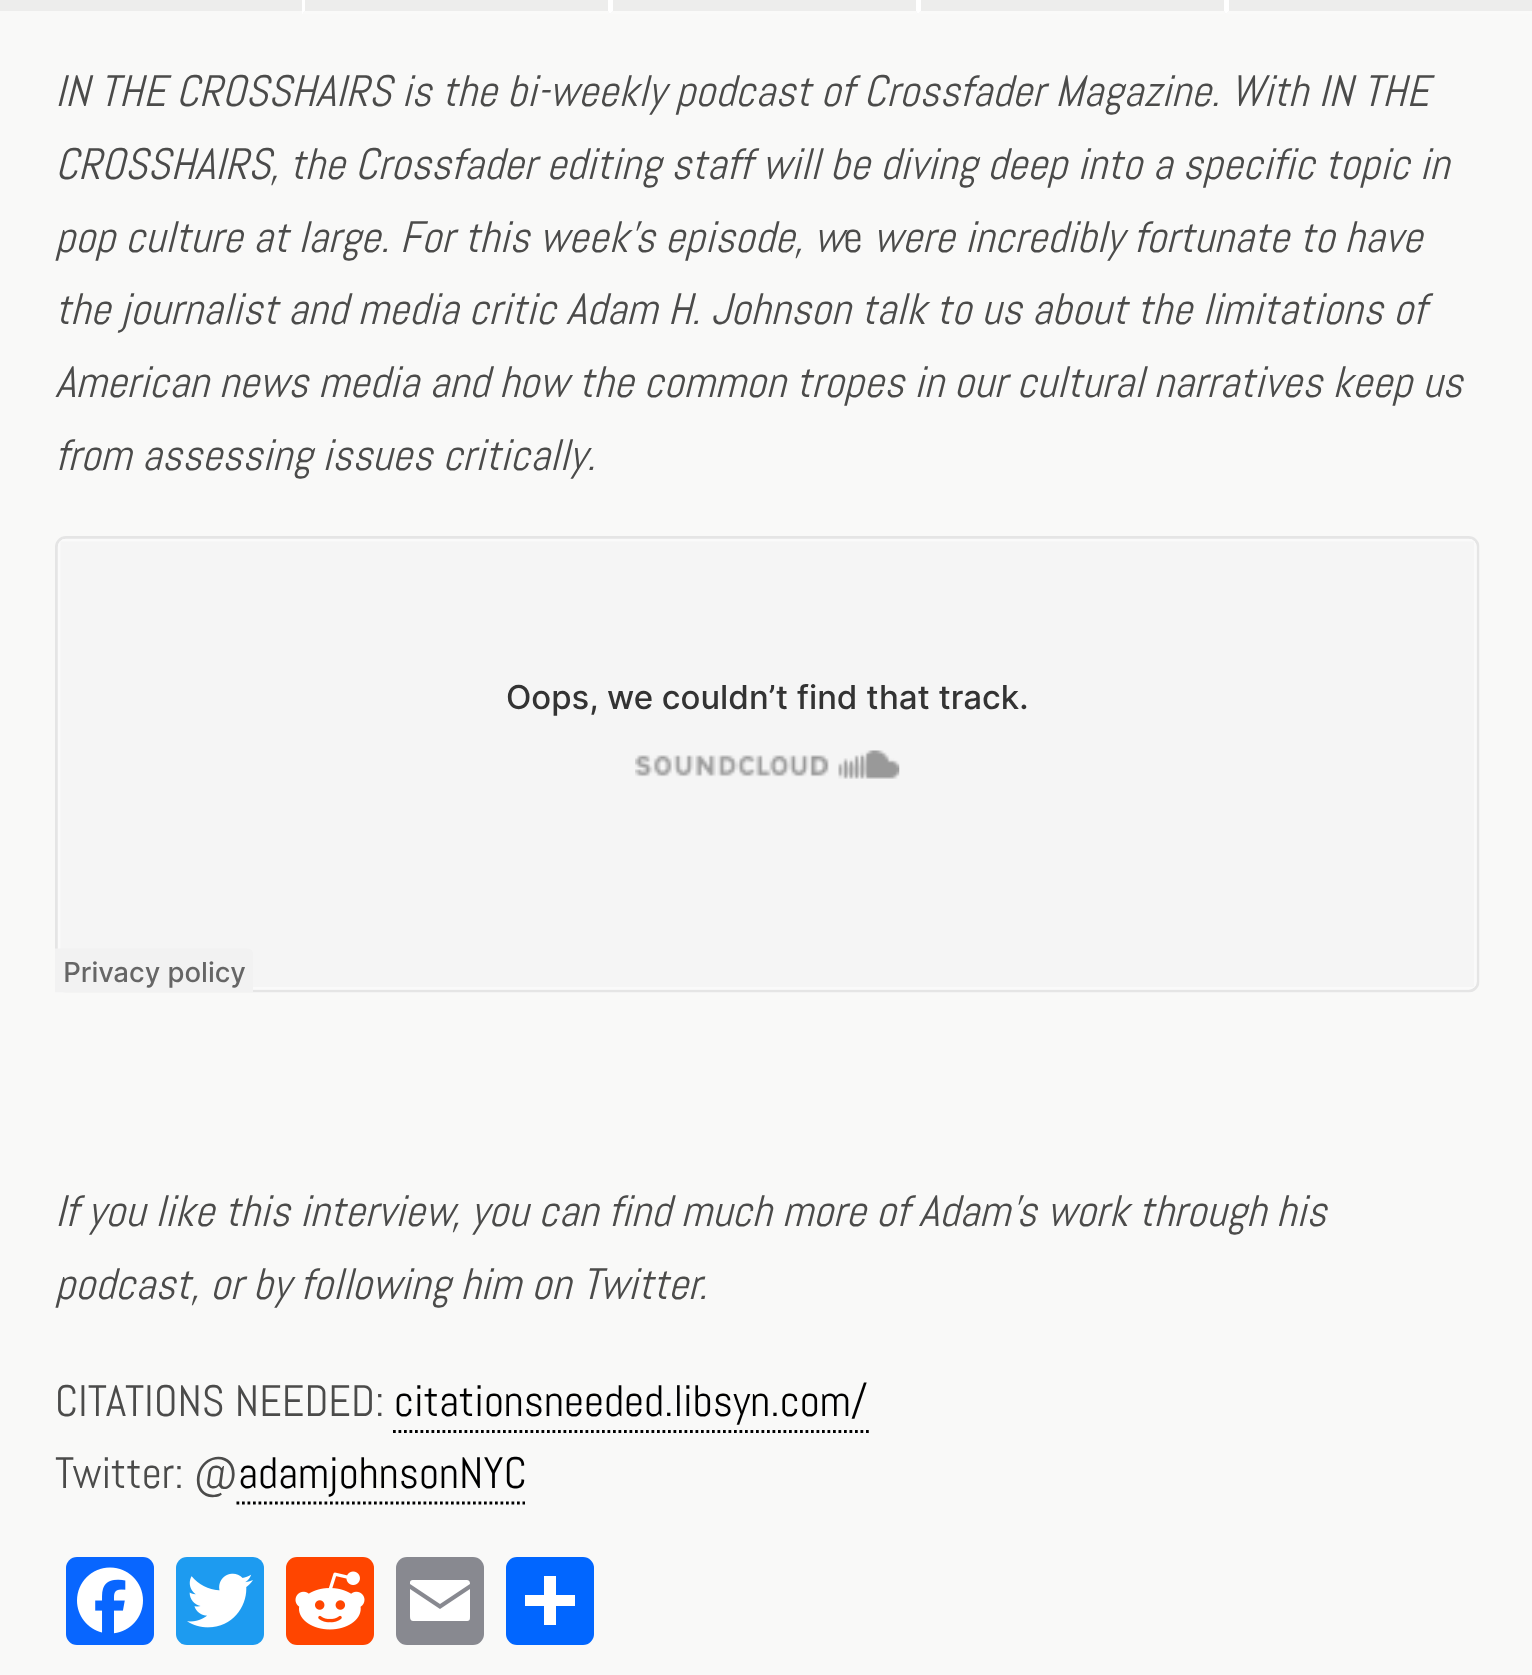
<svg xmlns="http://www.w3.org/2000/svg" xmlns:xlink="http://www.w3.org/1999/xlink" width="1532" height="1675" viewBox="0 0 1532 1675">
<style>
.cls-1{font:italic 44px Abel;fill:#4b4b4a}
.cls-2{font:44px Abel;fill:#4b4b4a}
.cls-3{font:44px Abel;fill:#000000}
</style>
<rect width="100%" height="100%" fill="#f9f9f8"/>
<rect fill="#ededec" x="0" y="0" width="302" height="11"/>
<rect fill="#ededec" x="303" y="0" width="924" height="14"/>
<path fill="#ffffff" d="M610-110V14L608 11V-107Z"/>
<path fill="#ffffff" fill-opacity="0.7" d="M610 14H302L305 11H608Z"/>
<path fill="#ffffff" d="M302 14V-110L305-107V11Z"/>
<path fill="#ffffff" d="M918-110V14L916 11V-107Z"/>
<path fill="#ffffff" fill-opacity="0.7" d="M918 14H610L613 11H916Z"/>
<path fill="#ffffff" d="M610 14V-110L613-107V11Z"/>
<path fill="#ffffff" d="M1226-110V14L1224 11V-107Z"/>
<path fill="#ffffff" fill-opacity="0.7" d="M1226 14H918L921 11H1224Z"/>
<path fill="#ffffff" d="M918 14V-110L921-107V11Z"/>
<rect fill="#ededec" x="1227" y="0" width="305" height="13"/>
<path fill="#fafaf9" d="M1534 14H1226L1229 11H1532Z"/>
<path fill="#ffffff" d="M1226 14V-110L1229-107V11Z"/>
<image xlink:href="image0.png" x="55" y="536" width="1425" height="457"/>
<path fill="none" stroke="#000000" stroke-width="2.8" stroke-dasharray="2.75 2.75" d="M393 1431.5H869"/>
<path fill="none" stroke="#000000" stroke-width="2.8" stroke-dasharray="2.75 2.75" d="M236.5 1503H525"/>
<rect fill="#0866ff" x="66" y="1557" width="88" height="88" rx="11"/>
<image xlink:href="image1.png" x="77" y="1567" width="66" height="67"/>
<rect fill="#1d9bf0" x="176" y="1557" width="88" height="88" rx="11"/>
<image xlink:href="image2.png" x="187" y="1573" width="66" height="55"/>
<rect fill="#ff4500" x="286" y="1557" width="88" height="88" rx="11"/>
<image xlink:href="image3.png" x="295" y="1571" width="70" height="59"/>
<rect fill="#888990" x="396" y="1557" width="88" height="88" rx="11"/>
<path fill="#ffffff" d="M470 1616V1589L440 1609L410 1589V1616C410 1620 411 1621 414 1621H466C470 1621 470 1620 470 1616M470 1584C470 1581 469 1580 466 1580H414C410 1580 410 1581 410 1584L440 1604Z"/>
<rect fill="#0166ff" x="506" y="1557" width="88" height="88" rx="11"/>
<rect fill="#ffffff" x="544" y="1576" width="12" height="49"/>
<rect fill="#ffffff" x="525" y="1595" width="50" height="11"/>
<text class="cls-1"><tspan x="55" y="106">IN THE CROSSHAIRS is the bi-weekly podcast of Crossfader Magazine. With IN THE</tspan><tspan x="55" y="179">CROSSHAIRS, the Crossfader editing staff will be diving deep into a specific topic in</tspan><tspan x="55" y="252">pop culture at large. For this week’s episode, w</tspan></text>
<text class="cls-2" x="843" y="252">e</text>
<text class="cls-1" x="873" y="252">were incredibly fortunate to have</text>
<text class="cls-1"><tspan x="55" y="324">the journalist and media critic Adam H. Johnson talk to us about the limitations of</tspan><tspan x="55" y="397">American news media and how the common tropes in our cultural narratives keep us</tspan><tspan x="55" y="470">from assessing issues critically.</tspan></text>
<text class="cls-1"><tspan x="55" y="1226">If you like this interview, you can find much more of Adam’s work through his</tspan><tspan x="55" y="1299">podcast, or by following him on Twitter.</tspan></text>
<text class="cls-2" x="55" y="1416">CITATIONS NEEDED:</text>
<text class="cls-3" x="394" y="1416">citationsneeded.libsyn.com/</text>
<text class="cls-2" x="55" y="1488">Twitter: @</text>
<text class="cls-3" x="238" y="1488">adamjohnsonNYC</text>
</svg>
